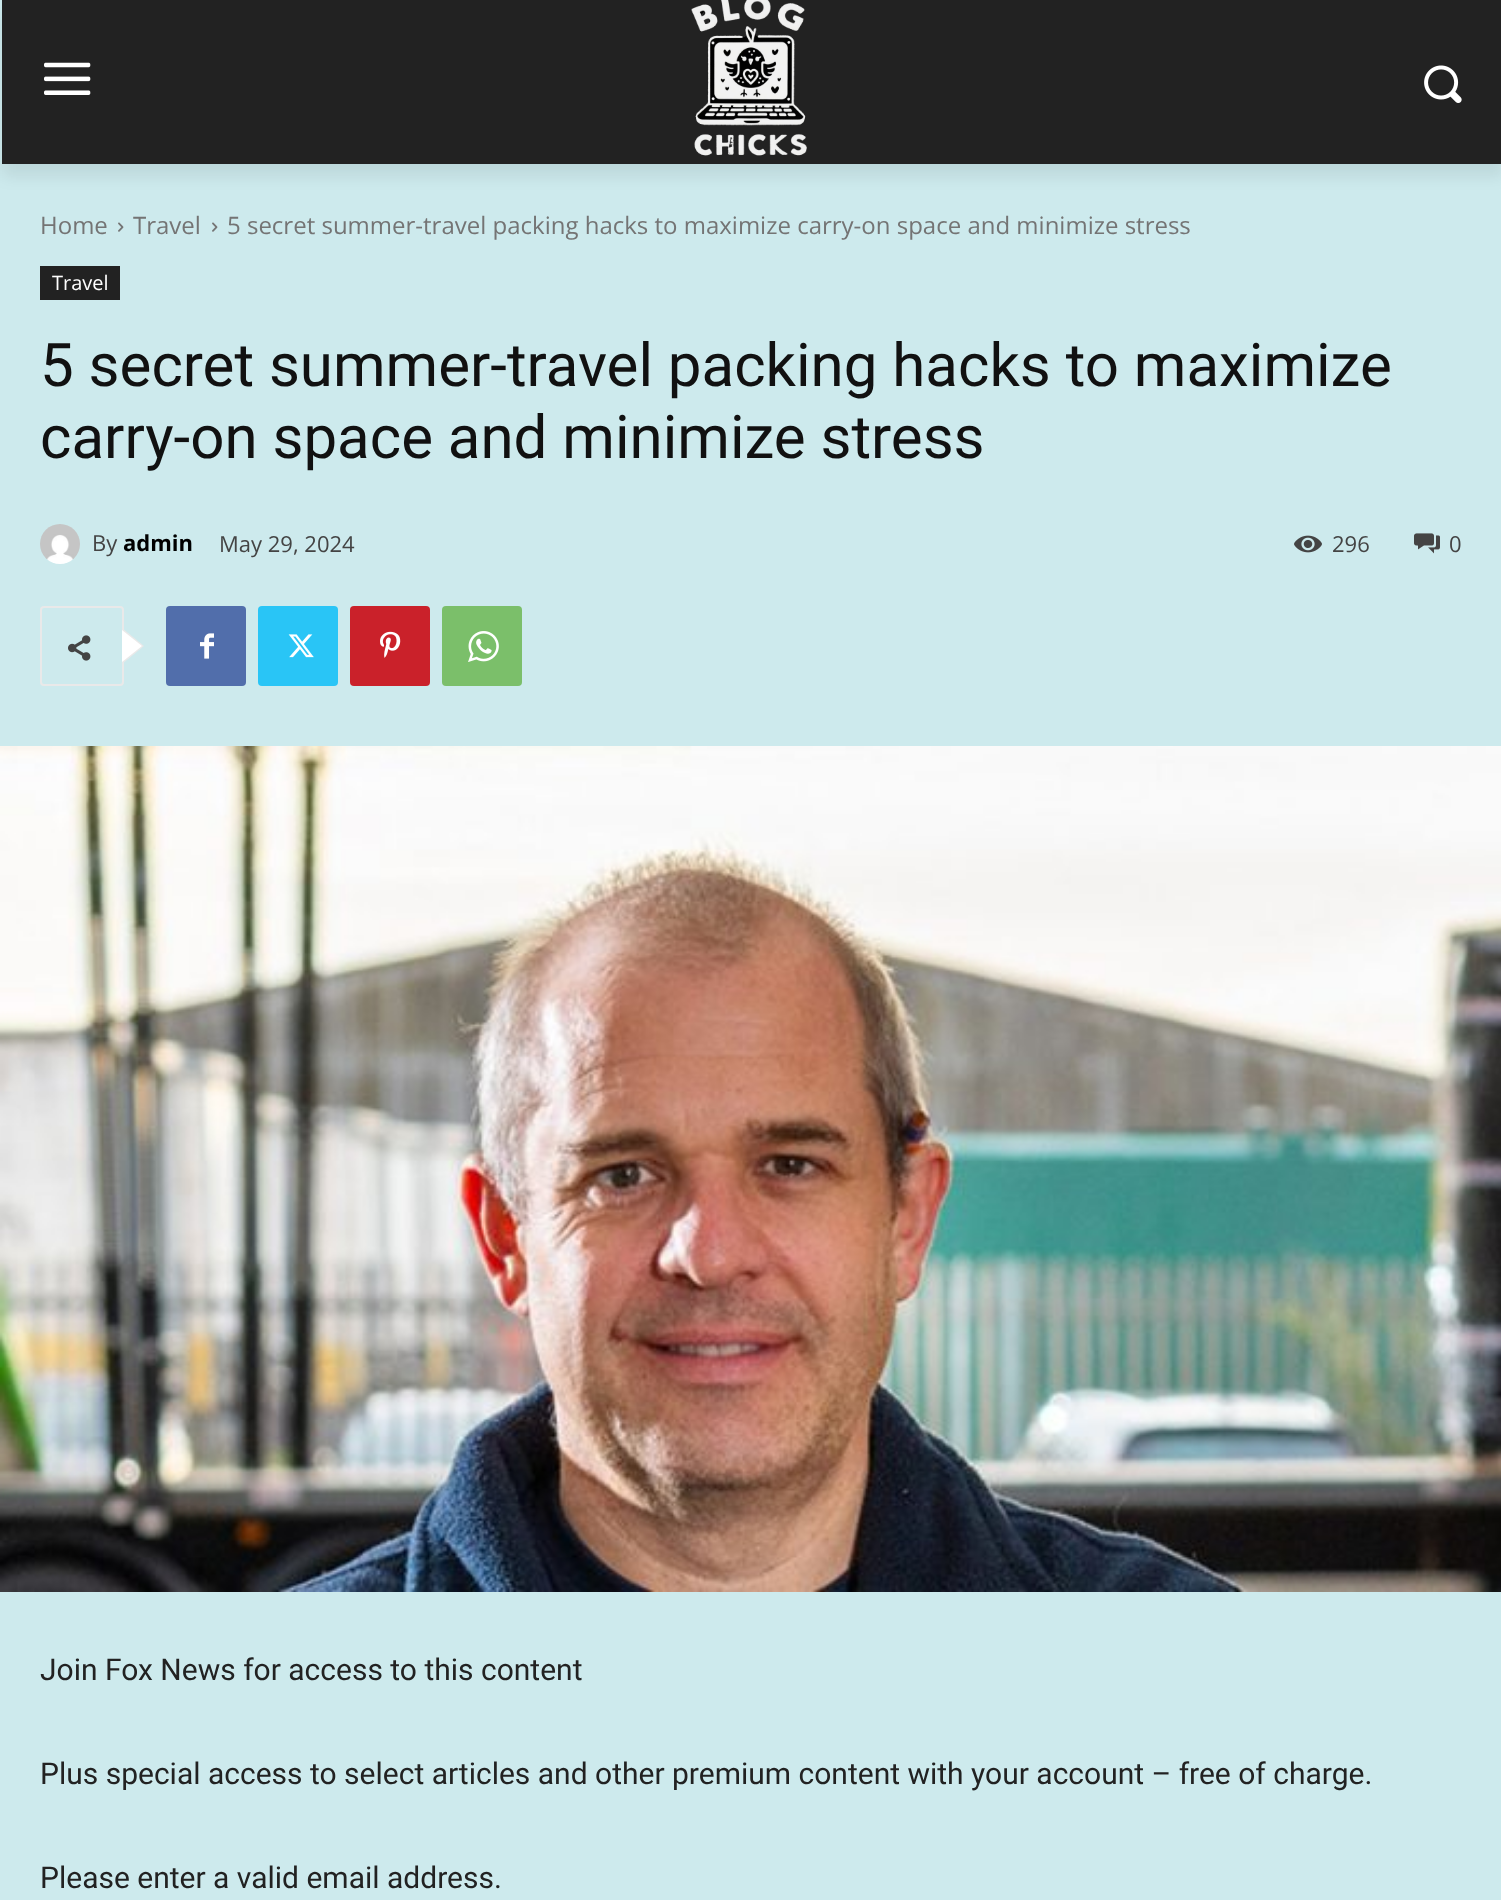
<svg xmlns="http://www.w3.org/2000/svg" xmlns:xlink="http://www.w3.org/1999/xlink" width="1501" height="1900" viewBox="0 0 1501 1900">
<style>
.cls-1{font:24px Open Sans;fill:#747474}
.cls-2{font:20px Open Sans;fill:#ffffff}
.cls-3{font:60px Roboto;fill:#111111}
.cls-4{font:22px Open Sans;fill:#444444}
.cls-5{font:bold 22px Open Sans;fill:#000000}
.cls-6{font:30px Roboto;fill:#222222}
</style>
<defs>
<clipPath id="clip1"><path d="M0 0H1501V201H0ZM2 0H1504V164H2Z" clip-rule="evenodd"/></clipPath>
</defs>
<rect width="100%" height="100%" fill="#cdeaed"/>
<rect fill="#222222" x="2" y="0" width="1499" height="164"/>
<image xlink:href="image0.png" x="44" y="62" width="47" height="33"/>
<image xlink:href="image1.png" x="691" y="0" width="116" height="156"/>
<image xlink:href="image2.png" x="1424" y="65" width="38" height="38"/>
<g clip-path="url(#clip1)">
<rect fill="#000000" fill-opacity="0.08" filter="blur(8px)" x="2" y="12" width="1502" height="164"/>
</g>
<image xlink:href="image3.png" x="118" y="222" width="6" height="10"/>
<image xlink:href="image3.png" x="212" y="222" width="6" height="10"/>
<rect fill="#222222" x="40" y="266" width="80" height="34"/>
<image xlink:href="image4.png" x="40" y="524" width="40" height="40"/>
<image xlink:href="image5.png" x="1294" y="535" width="28" height="18"/>
<image xlink:href="image6.png" x="1414" y="533" width="26" height="21"/>
<rect fill="none" stroke="#e9e9e9" stroke-width="2" x="41" y="607" width="82" height="78" rx="3"/>
<path fill="#e9e9e9" d="M122 664V628L144 646Z"/>
<image xlink:href="image7.png" x="68" y="635" width="23" height="26"/>
<path fill="#ffffff" d="M122 662V630L142 646Z"/>
<rect fill="#516eab" x="166" y="606" width="80" height="80" rx="4"/>
<image xlink:href="image8.png" x="200" y="633" width="14" height="26"/>
<rect fill="#29c5f6" x="258" y="606" width="80" height="80" rx="4"/>
<image xlink:href="image9.png" x="288" y="634" width="26" height="24"/>
<rect fill="#ca212a" x="350" y="606" width="80" height="80" rx="4"/>
<image xlink:href="image10.png" x="380" y="631" width="21" height="27"/>
<rect fill="#7bbf6a" x="442" y="606" width="80" height="80" rx="4"/>
<image xlink:href="image11.png" x="468" y="631" width="31" height="31"/>
<image xlink:href="image12.png" x="0" y="746" width="1501" height="846"/>
<text class="cls-1" x="40" y="234">Home</text>
<text class="cls-1" x="133" y="234">Travel</text>
<text class="cls-1" x="227" y="234">5 secret summer-travel packing hacks to maximize carry-on space and minimize stress</text>
<text class="cls-2" x="52" y="290">Travel</text>
<text class="cls-3"><tspan x="40" y="386">5 secret summer-travel packing hacks to maximize</tspan><tspan x="40" y="458">carry-on space and minimize stress</tspan></text>
<text class="cls-4" x="92" y="551">By</text>
<text class="cls-5" x="123" y="551">admin</text>
<text class="cls-4" x="219" y="552">May 29, 2024</text>
<text class="cls-4" x="1332" y="552">296</text>
<text class="cls-4" x="1449" y="552">0</text>
<text class="cls-6" x="40" y="1680">Join Fox News for access to this content</text>
<text class="cls-6" x="40" y="1784">Plus special access to select articles and other premium content with your account – free of charge.</text>
<text class="cls-6" x="40" y="1888">Please enter a valid email address.</text>
</svg>
